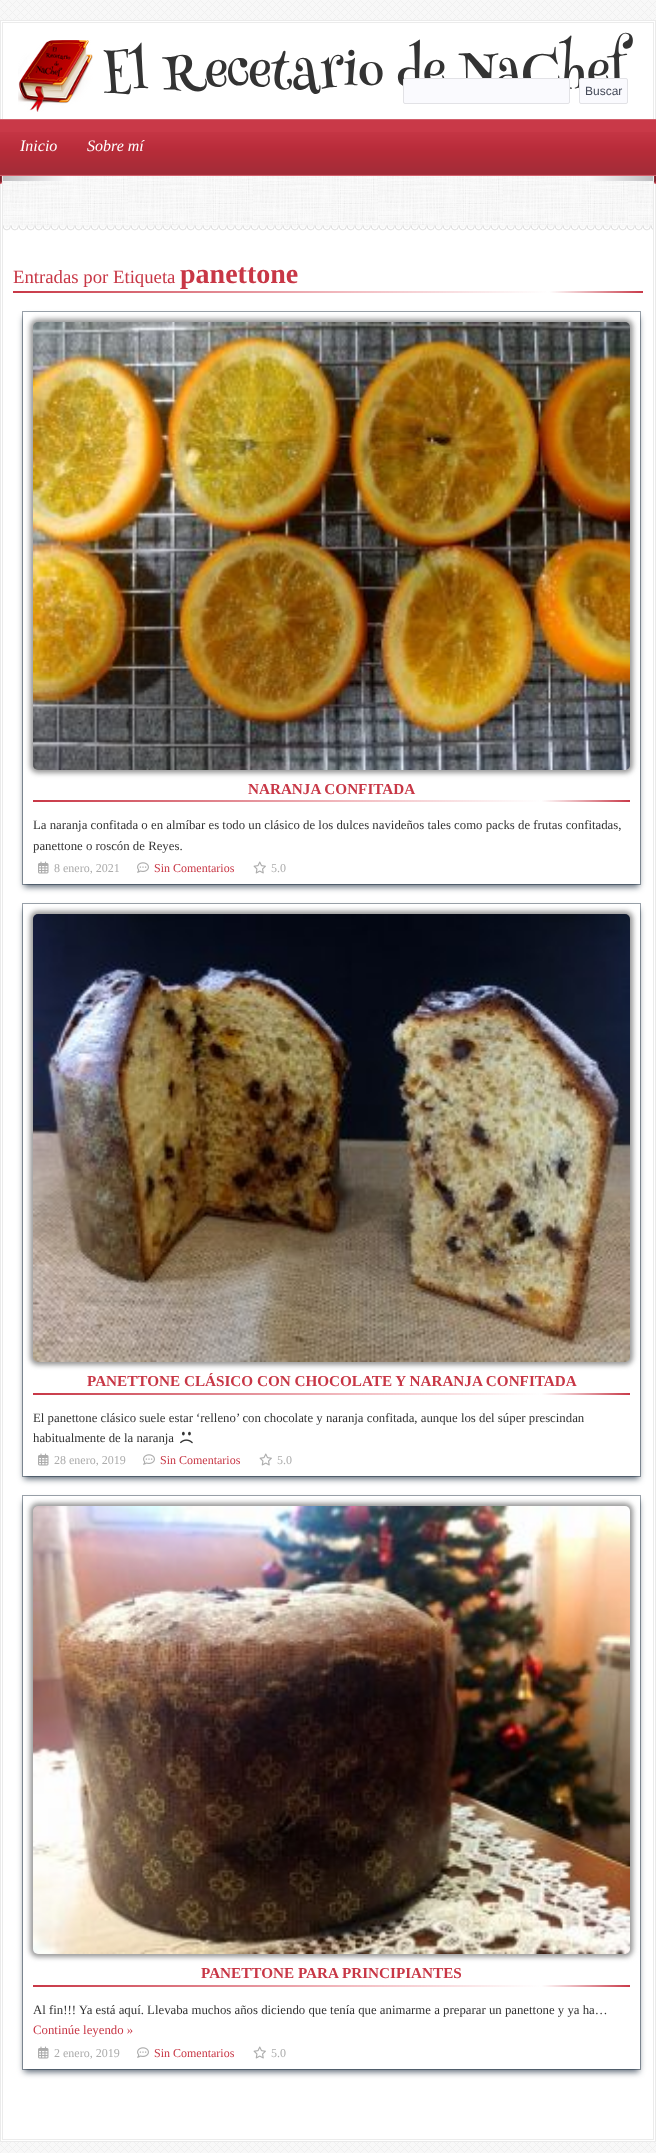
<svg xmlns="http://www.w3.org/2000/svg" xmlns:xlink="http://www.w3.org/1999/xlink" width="656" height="2153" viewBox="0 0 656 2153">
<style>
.cls-1{font:50px Henny Penny;fill:#333333}
.cls-2{font:12px Liberation Sans;fill:#464b5a}
.cls-3{font:italic 16px Liberation Serif;fill:#ffffff}
.cls-4{font:18.75px Liberation Serif;fill:#c83746}
.cls-5{font:bold 28px Liberation Serif;fill:#c83746}
.cls-6{font:bold 15.2px Liberation Serif;fill:#c83746}
.cls-7{font:12.8px Liberation Serif;fill:#333333}
.cls-8{font:12px Liberation Serif;fill:#acacac}
.cls-9{font:12px Liberation Serif;fill:#c83746}
.cls-10{font:12.8px Liberation Serif;fill:#c83746}
</style>
<defs>
<clipPath id="clip1"><path d="M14 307H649V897H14ZM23 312H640V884H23Z" clip-rule="evenodd"/></clipPath>
<clipPath id="clip2"><path d="M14 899H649V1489H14ZM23 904H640V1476H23Z" clip-rule="evenodd"/></clipPath>
<clipPath id="clip3"><path d="M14 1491H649V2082H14ZM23 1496H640V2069H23Z" clip-rule="evenodd"/></clipPath>
</defs>
<rect width="100%" height="100%" fill="#f8f8f8"/>
<image xlink:href="image0.png" x="0" y="0" width="656" height="2153"/>
<rect fill="#ffffff" stroke="#ebebeb" x="0.5" y="20.5" width="655" height="2121"/>
<rect fill="none" stroke="#ebebeb" x="2.5" y="22.5" width="651" height="2117"/>
<image xlink:href="image1.png" x="18" y="40" width="75" height="72"/>
<rect fill="#c93948" x="0" y="120" width="656" height="12"/>
<image xlink:href="image2.png" x="0" y="132" width="656" height="44"/>
<rect fill="#d2606c" x="0" y="119" width="656" height="1"/>
<image xlink:href="image3.png" x="0" y="176" width="2" height="8"/>
<image xlink:href="image4.png" x="654" y="176" width="2" height="8"/>
<image xlink:href="image5.png" x="3" y="176" width="650" height="49"/>
<image xlink:href="image6.png" x="3" y="225" width="650" height="6"/>
<image xlink:href="image7.png" x="13" y="291" width="630" height="2"/>
<g clip-path="url(#clip1)">
<rect fill="#06182c" fill-opacity="0.65" filter="blur(3px)" x="24" y="317" width="615" height="570"/>
</g>
<rect fill="none" stroke="#06182c" stroke-opacity="0.4" x="22.5" y="311.5" width="618" height="573"/>
<rect fill="#757575" fill-opacity="0.75" filter="blur(2.5px)" x="30" y="319" width="603" height="454" rx="8"/>
<image xlink:href="image8.png" x="33" y="322" width="597" height="448"/>
<image xlink:href="image9.png" x="33" y="800" width="597" height="2"/>
<image xlink:href="image10.png" x="38" y="861" width="11" height="13"/>
<image xlink:href="image11.png" x="137" y="862" width="12" height="11"/>
<image xlink:href="image12.png" x="253" y="861" width="13" height="13"/>
<g clip-path="url(#clip2)">
<rect fill="#06182c" fill-opacity="0.65" filter="blur(3px)" x="24" y="909" width="615" height="570"/>
</g>
<rect fill="none" stroke="#06182c" stroke-opacity="0.4" x="22.5" y="903.5" width="618" height="573"/>
<rect fill="#757575" fill-opacity="0.75" filter="blur(2.5px)" x="30" y="911" width="603" height="454" rx="8"/>
<image xlink:href="image13.png" x="33" y="914" width="597" height="448"/>
<image xlink:href="image14.png" x="33" y="1393" width="597" height="2"/>
<image xlink:href="image15.png" x="180" y="1431" width="13" height="13"/>
<image xlink:href="image10.png" x="38" y="1453" width="11" height="13"/>
<image xlink:href="image11.png" x="143" y="1454" width="12" height="11"/>
<image xlink:href="image12.png" x="259" y="1453" width="13" height="13"/>
<g clip-path="url(#clip3)">
<rect fill="#06182c" fill-opacity="0.65" filter="blur(3px)" x="24" y="1501" width="615" height="571"/>
</g>
<rect fill="none" stroke="#06182c" stroke-opacity="0.4" x="22.5" y="1495.5" width="618" height="574"/>
<rect fill="#757575" fill-opacity="0.75" filter="blur(2.5px)" x="30" y="1503" width="603" height="454" rx="8"/>
<image xlink:href="image16.png" x="33" y="1506" width="597" height="448"/>
<image xlink:href="image17.png" x="33" y="1985" width="597" height="2"/>
<image xlink:href="image10.png" x="38" y="2046" width="11" height="13"/>
<image xlink:href="image11.png" x="137" y="2047" width="12" height="11"/>
<image xlink:href="image12.png" x="253" y="2046" width="13" height="13"/>
<text class="cls-1" x="103" y="89">El Recetario de NaChef</text>
<rect fill="#fafafe" stroke="#e2e2e6" x="403.5" y="78.5" width="166" height="25" rx="1.5"/>
<rect fill="#fafafe" stroke="#e2e2e6" x="579.5" y="78.5" width="48" height="25" rx="1.5"/>
<text class="cls-2" x="585" y="95">Buscar</text>
<text class="cls-3" x="20" y="151">Inicio</text>
<text class="cls-3" x="87" y="151">Sobre mí</text>
<text class="cls-4" x="13" y="283">Entradas por Etiqueta</text>
<text class="cls-5" x="180" y="283">panettone</text>
<text class="cls-6" x="248" y="794">NARANJA CONFITADA</text>
<text class="cls-7"><tspan x="33" y="829">La naranja confitada o en almíbar es todo un clásico de los dulces navideños tales como packs de frutas confitadas,</tspan><tspan x="33" y="850">panettone o roscón de Reyes.</tspan></text>
<text class="cls-8" x="54" y="872">8 enero, 2021</text>
<text class="cls-9" x="154" y="872">Sin Comentarios</text>
<text class="cls-8" x="271" y="872">5.0</text>
<text class="cls-6" x="87" y="1386">PANETTONE CLÁSICO CON CHOCOLATE Y NARANJA CONFITADA</text>
<text class="cls-7"><tspan x="33" y="1422">El panettone clásico suele estar ‘relleno’ con chocolate y naranja confitada, aunque los del súper prescindan</tspan><tspan x="33" y="1442">habitualmente de la naranja</tspan></text>
<text class="cls-8" x="54" y="1464">28 enero, 2019</text>
<text class="cls-9" x="160" y="1464">Sin Comentarios</text>
<text class="cls-8" x="277" y="1464">5.0</text>
<text class="cls-6" x="201" y="1978">PANETTONE PARA PRINCIPIANTES</text>
<text class="cls-7" x="33" y="2014">Al fin!!! Ya está aquí. Llevaba muchos años diciendo que tenía que animarme a preparar un panettone y ya ha…</text>
<text class="cls-10" x="33" y="2034">Continúe leyendo »</text>
<text class="cls-8" x="54" y="2057">2 enero, 2019</text>
<text class="cls-9" x="154" y="2057">Sin Comentarios</text>
<text class="cls-8" x="271" y="2057">5.0</text>
</svg>
